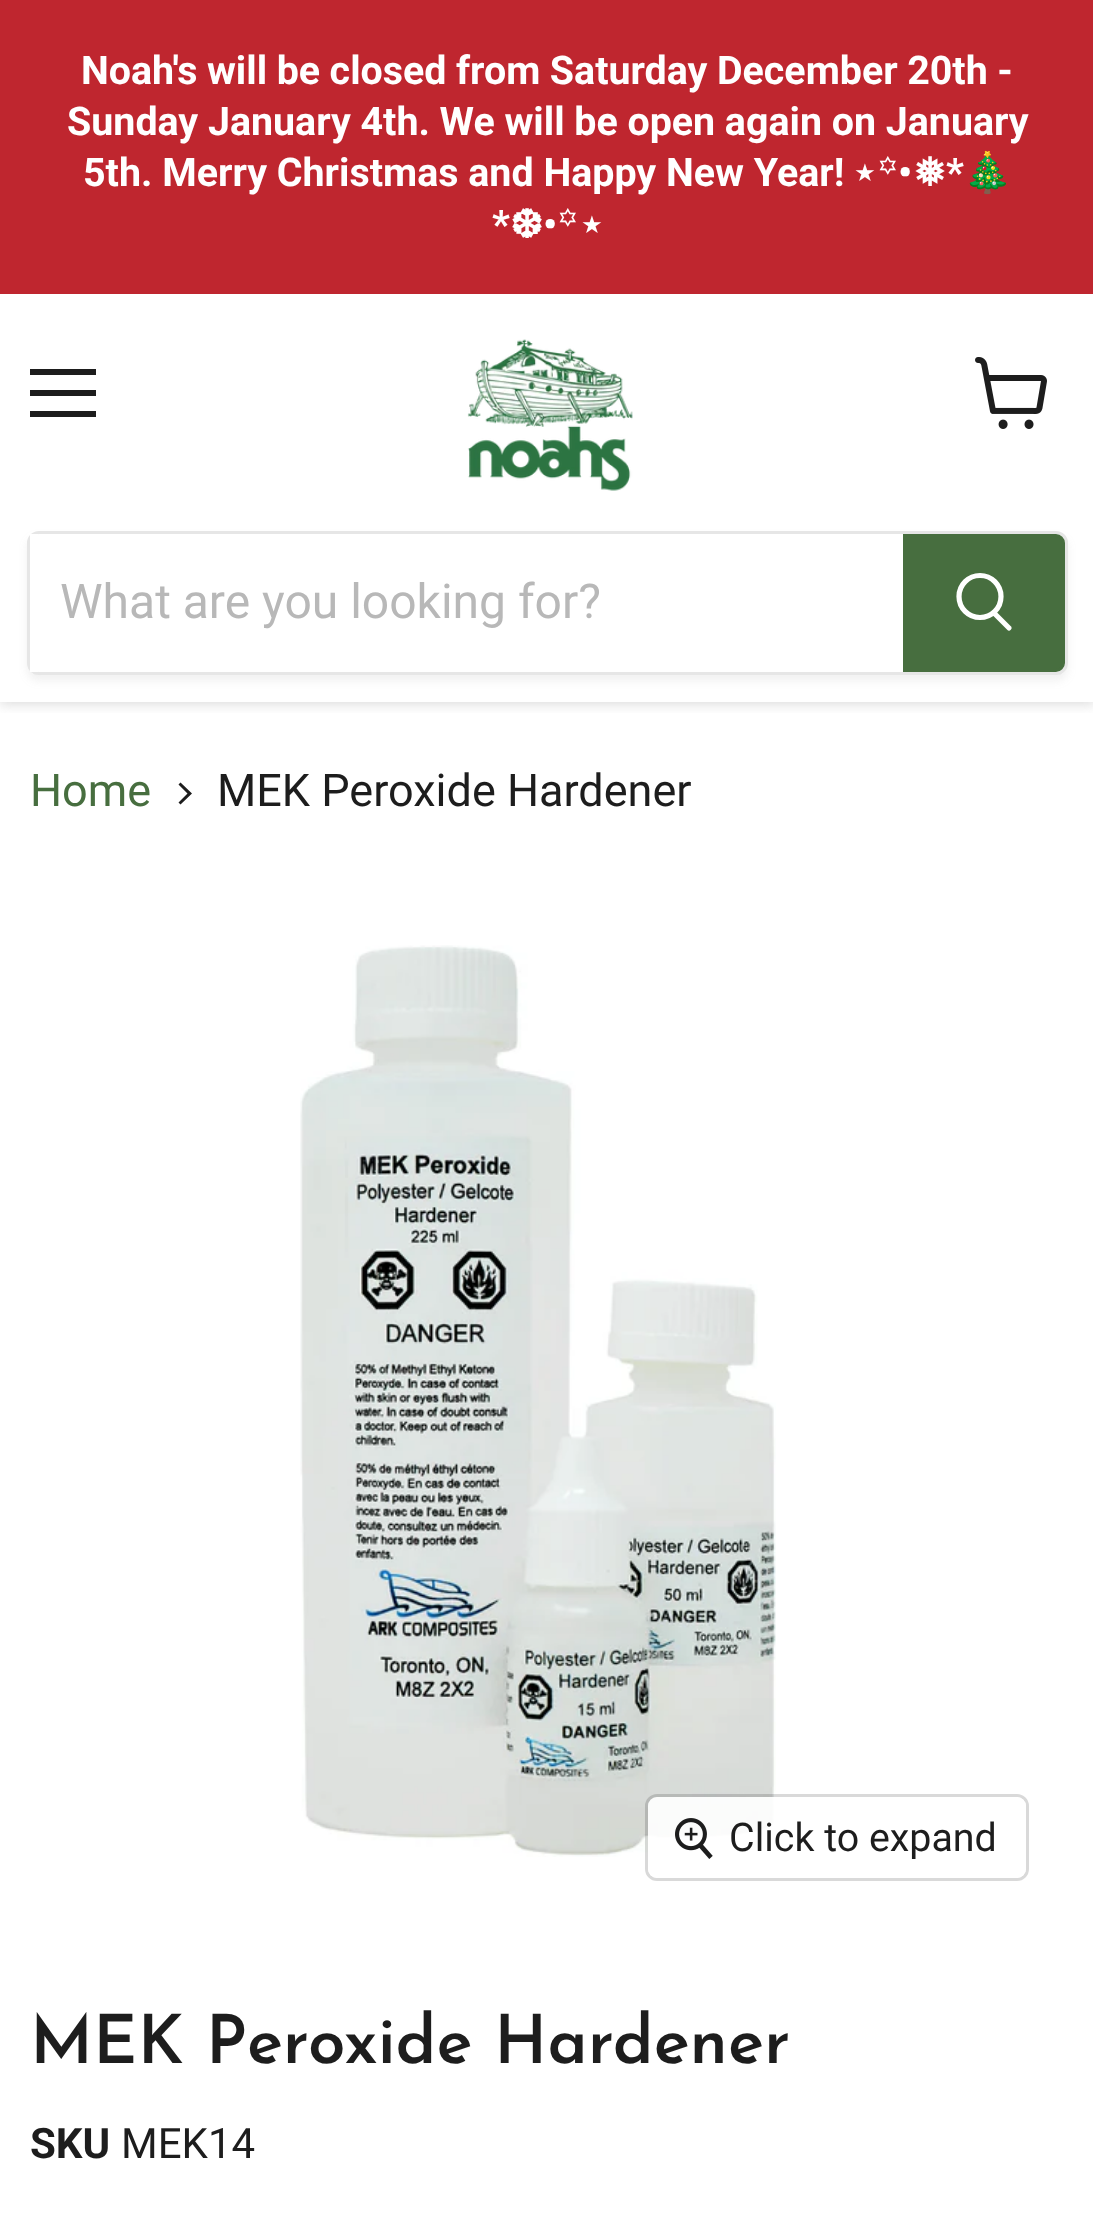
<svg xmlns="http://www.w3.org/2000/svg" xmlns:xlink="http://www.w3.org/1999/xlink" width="1093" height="2219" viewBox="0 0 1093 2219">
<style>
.cls-1{font:bold 39.4px Roboto;fill:#ffffff}
.cls-2{font:bold 39.4px DejaVu Sans;fill:#ffffff}
.cls-3{font:bold 39.4px Noto Sans;fill:#ffffff}
.cls-4{font:bold 39.4px Noto Color Emoji;fill:#ffffff}
.cls-5{font:48px Roboto;fill:#b8b8b8}
.cls-6{font:45px Roboto;fill:#476e3f}
.cls-7{font:45px Roboto;fill:#1d1d1d}
.cls-8{font:39.4px Roboto;fill:#1d1d1d}
.cls-9{font:600 67.5px Josefin Sans;fill:#1d1d1d}
.cls-10{font:bold 42px Roboto;fill:#1d1d1d}
.cls-11{font:42px Roboto;fill:#1d1d1d}
</style>
<defs>
<clipPath id="clip1"><rect x="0" y="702" width="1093" height="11"/></clipPath>
<clipPath id="clip2"><path d="M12 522H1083V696H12ZM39 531H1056C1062.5 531 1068 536.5 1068 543V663C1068 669.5 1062.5 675 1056 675H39C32.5 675 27 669.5 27 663V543C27 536.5 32.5 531 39 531Z" clip-rule="evenodd"/></clipPath>
</defs>
<rect width="100%" height="100%" fill="#ffffff"/>
<g clip-path="url(#clip1)">
<rect fill="#808080" fill-opacity="0.25" filter="blur(6px)" x="0" y="297" width="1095" height="408"/>
</g>
<rect fill="#bf262f" x="0" y="0" width="1093" height="294"/>
<rect fill="#1d1d1d" x="30" y="369" width="66" height="6"/>
<rect fill="#1d1d1d" x="30" y="390" width="66" height="6"/>
<rect fill="#1d1d1d" x="30" y="411" width="66" height="6"/>
<image xlink:href="image0.png" x="975" y="357" width="72" height="72"/>
<image xlink:href="image1.png" x="467" y="339" width="166" height="152"/>
<g clip-path="url(#clip2)">
<rect fill="#808080" fill-opacity="0.11" filter="blur(4.5px)" x="27" y="537" width="1041" height="144" rx="12"/>
</g>
<rect fill="none" stroke="#808080" stroke-opacity="0.2" stroke-width="3" x="28.5" y="532.5" width="1038" height="141" rx="10.5"/>
<rect fill="#ffffff" x="30" y="534" width="8" height="138"/>
<path fill="#476e3f" stroke="#476e3f" stroke-width="3" d="M904.5 535.5H1056C1060 535.5 1063.5 539 1063.5 543V663C1063.5 667 1060 670.5 1056 670.5H904.5Z"/>
<path fill="none" stroke="#ffffff" stroke-width="5.2" stroke-linecap="round" d="M1009 628L994.5 613.5"/>
<circle fill="none" stroke="#ffffff" stroke-width="5.2" cx="980" cy="596.5" r="21"/>
<path fill="#1d1d1d" fill-rule="evenodd" d="M178.5 802.5L180.5 804.5L192 793.5L180.5 782.5L178.5 784.5L187.5 793.5Z"/>
<image xlink:href="image2.png" x="300" y="945" width="476" height="912"/>
<rect fill="none" stroke="#000000" stroke-opacity="0.15" stroke-width="3" x="646.5" y="1795.5" width="381" height="84" rx="10.5"/>
<rect fill="#ffffff" fill-opacity="0.9" x="648" y="1797" width="378" height="81" rx="9"/>
<image xlink:href="image3.png" x="675" y="1818" width="38" height="41"/>
<text class="cls-1" x="81" y="84" word-spacing="-0.25">Noah's will be closed from Saturday December 20th -</text>
<text class="cls-1" x="67" y="135" word-spacing="-0.1">Sunday January 4th. We will be open again on January</text>
<text class="cls-1" x="83" y="186">5th. Merry Christmas and Happy New Year!</text>
<text class="cls-2" x="852" y="186">⋆</text>
<text class="cls-3" x="877" y="186">꙳</text>
<text class="cls-1" x="898" y="186">•</text>
<text class="cls-2" x="913" y="186">❅</text>
<text class="cls-1" x="946" y="186">*</text>
<text class="cls-4" x="963" y="186">🎄</text>
<text class="cls-1" x="492" y="238">*</text>
<text class="cls-2" x="510" y="238">❆</text>
<text class="cls-1" x="543" y="238">•</text>
<text class="cls-3" x="557" y="238">꙳</text>
<text class="cls-2" x="579" y="238">⋆</text>
<text class="cls-5" x="60" y="618">What are you looking for?</text>
<text class="cls-6" x="30" y="806">Home</text>
<text class="cls-7" x="217" y="806">MEK Peroxide Hardener</text>
<text class="cls-8" x="729" y="1851">Click to expand</text>
<text class="cls-9" x="30" y="2063">MEK Peroxide Hardener</text>
<text class="cls-10" x="30" y="2158">SKU</text>
<text class="cls-11" x="121" y="2158">MEK14</text>
</svg>
